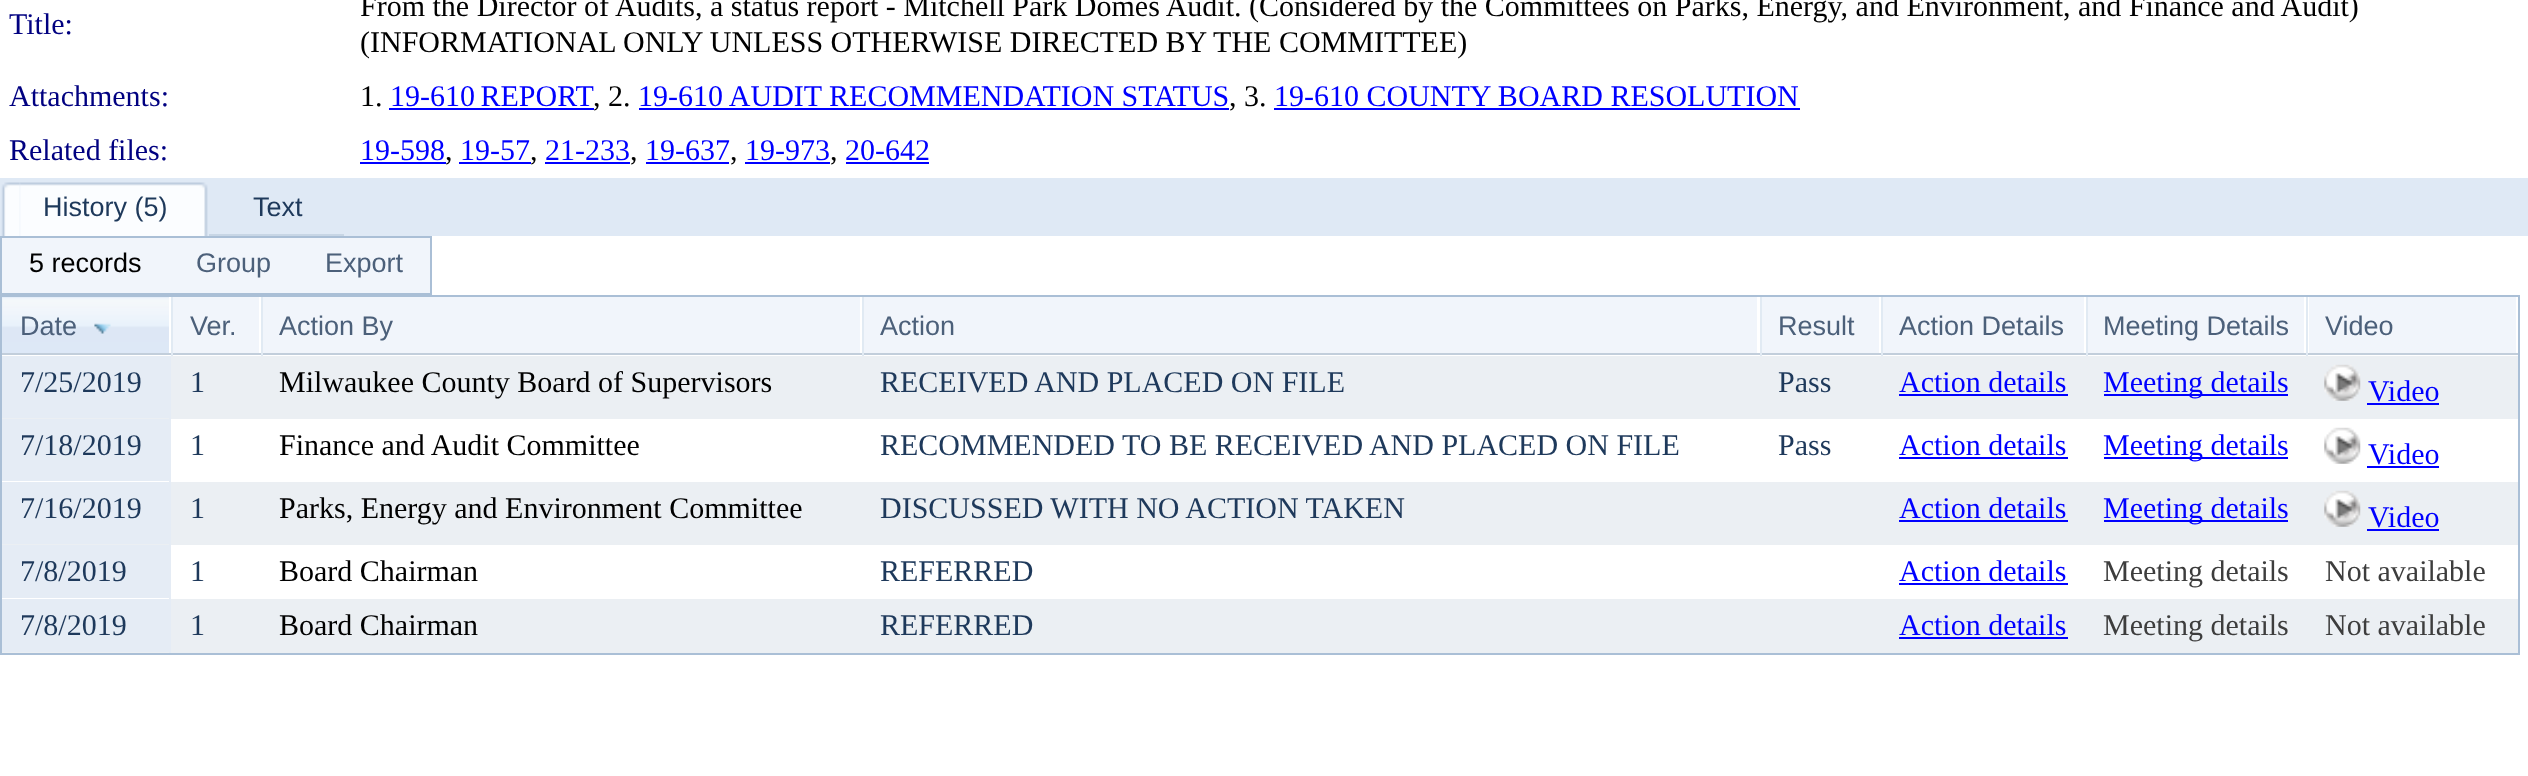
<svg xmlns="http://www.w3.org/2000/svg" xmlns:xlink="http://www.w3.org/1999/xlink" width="2528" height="776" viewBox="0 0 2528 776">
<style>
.cls-1{font:30px Liberation Serif;fill:#000080}
.cls-2{font:30px Liberation Serif;fill:#000000}
.cls-3{font:30px Liberation Serif;fill:#0000ff}
.cls-4{font:27px Liberation Sans;fill:#1e395b}
.cls-5{font:27px Liberation Sans;fill:#000000}
.cls-6{font:27px Liberation Sans;fill:#4c607a}
.cls-7{font:30px Liberation Serif;fill:#1e395b}
.cls-8{font:30px Liberation Serif;fill:#3d3d3d}
</style>
<rect width="100%" height="100%" fill="#ffffff"/>
<rect fill="#0000ff" x="389" y="108" width="205" height="2"/>
<rect fill="#0000ff" x="639" y="108" width="590" height="2"/>
<rect fill="#0000ff" x="1274" y="108" width="526" height="2"/>
<rect fill="#0000ff" x="360" y="162" width="86" height="2"/>
<rect fill="#0000ff" x="459" y="162" width="72" height="2"/>
<rect fill="#0000ff" x="545" y="162" width="85" height="2"/>
<rect fill="#0000ff" x="646" y="162" width="83" height="2"/>
<rect fill="#0000ff" x="745" y="162" width="85" height="2"/>
<rect fill="#0000ff" x="846" y="162" width="83" height="2"/>
<rect fill="#dfe9f5" x="0" y="178" width="2528" height="58"/>
<image xlink:href="image0.png" x="1" y="182" width="20" height="54"/>
<image xlink:href="image1.png" x="20" y="182" width="188" height="54"/>
<rect fill="#c8d6e5" x="209" y="234" width="135" height="2"/>
<rect fill="#f1f5fb" stroke="#aabfd6" stroke-width="2" x="1" y="237" width="430" height="57"/>
<rect fill="none" stroke="#aabfd6" stroke-width="2" x="1" y="296" width="2518" height="358"/>
<rect fill="#dde8f7" x="2" y="297" width="167" height="56"/>
<image xlink:href="image2.png" x="2" y="297" width="167" height="55"/>
<rect fill="#c2cedb" x="2" y="353" width="2516" height="2"/>
<image xlink:href="image3.png" x="94" y="323" width="17" height="11"/>
<rect fill="#f1f5fb" x="173" y="297" width="86" height="56"/>
<rect fill="#e1eaf3" x="171" y="297" width="2" height="59"/>
<rect fill="#f1f5fb" x="263" y="297" width="597" height="56"/>
<rect fill="#e1eaf3" x="261" y="297" width="2" height="59"/>
<rect fill="#f1f5fb" x="864" y="297" width="893" height="56"/>
<rect fill="#e1eaf3" x="862" y="297" width="2" height="59"/>
<rect fill="#f1f5fb" x="1762" y="297" width="117" height="56"/>
<rect fill="#e1eaf3" x="1760" y="297" width="2" height="59"/>
<rect fill="#f1f5fb" x="1883" y="297" width="201" height="56"/>
<rect fill="#e1eaf3" x="1881" y="297" width="2" height="59"/>
<rect fill="#f1f5fb" x="2088" y="297" width="216" height="56"/>
<rect fill="#e1eaf3" x="2086" y="297" width="2" height="59"/>
<rect fill="#f1f5fb" x="2309" y="297" width="207" height="56"/>
<rect fill="#e1eaf3" x="2306" y="297" width="2" height="59"/>
<rect fill="#ebeff3" x="2" y="356" width="2516" height="63"/>
<rect fill="#e5ecf5" x="2" y="356" width="167" height="60"/>
<rect fill="#e5ecf5" x="169" y="356" width="2" height="126"/>
<rect fill="#e5ecf5" x="2" y="416" width="169" height="2"/>
<rect fill="#0000ff" x="1899" y="394" width="169" height="2"/>
<rect fill="#0000ff" x="2104" y="394" width="184" height="2"/>
<image xlink:href="image4.png" x="2324" y="364" width="37" height="37"/>
<rect fill="#0000ff" x="2367" y="403" width="72" height="2"/>
<rect fill="#e5ecf5" x="2" y="419" width="167" height="60"/>
<rect fill="#e5ecf5" x="2" y="479" width="169" height="2"/>
<rect fill="#0000ff" x="1899" y="457" width="169" height="2"/>
<rect fill="#0000ff" x="2104" y="457" width="184" height="2"/>
<image xlink:href="image5.png" x="2324" y="427" width="37" height="37"/>
<rect fill="#0000ff" x="2367" y="466" width="72" height="2"/>
<rect fill="#ebeff3" x="2" y="482" width="2516" height="63"/>
<rect fill="#e5ecf5" x="2" y="482" width="167" height="60"/>
<rect fill="#e5ecf5" x="169" y="482" width="2" height="117"/>
<rect fill="#e5ecf5" x="2" y="542" width="169" height="2"/>
<rect fill="#0000ff" x="1899" y="520" width="169" height="2"/>
<rect fill="#0000ff" x="2104" y="520" width="184" height="2"/>
<image xlink:href="image4.png" x="2324" y="490" width="37" height="37"/>
<rect fill="#0000ff" x="2367" y="529" width="72" height="2"/>
<rect fill="#e5ecf5" x="2" y="545" width="167" height="51"/>
<rect fill="#e5ecf5" x="2" y="596" width="169" height="2"/>
<rect fill="#0000ff" x="1899" y="583" width="169" height="2"/>
<rect fill="#ebeff3" x="2" y="599" width="2516" height="54"/>
<rect fill="#e5ecf5" x="2" y="599" width="167" height="51"/>
<rect fill="#e5ecf5" x="169" y="599" width="2" height="54"/>
<rect fill="#e5ecf5" x="2" y="650" width="169" height="2"/>
<rect fill="#0000ff" x="1899" y="637" width="169" height="2"/>
<text class="cls-1" x="9" y="34">Title:</text>
<text class="cls-2" x="360" y="16">From the Director of Audits, a status report - Mitchell Park Domes Audit.</text>
<text class="cls-2" x="1249" y="16">(Considered by the Committees on Parks, Energy, and Environment, and Finance and Audit)</text>
<text class="cls-2" x="360" y="52">(INFORMATIONAL ONLY UNLESS OTHERWISE DIRECTED BY THE COMMITTEE)</text>
<text class="cls-1" x="9" y="106">Attachments:</text>
<text class="cls-2" x="360" y="106">1.</text>
<text class="cls-3" x="390" y="106" word-spacing="-2">19-610 REPORT</text>
<text class="cls-2" x="593" y="106">, 2.</text>
<text class="cls-3" x="638" y="106">19-610 AUDIT RECOMMENDATION STATUS</text>
<text class="cls-2" x="1229" y="106">, 3.</text>
<text class="cls-3" x="1274" y="106">19-610 COUNTY BOARD RESOLUTION</text>
<text class="cls-1" x="9" y="160">Related files:</text>
<text class="cls-3" x="360" y="160">19-598</text>
<text class="cls-2" x="445" y="160">,</text>
<text class="cls-3" x="460" y="160">19-57</text>
<text class="cls-2" x="530" y="160">,</text>
<text class="cls-3" x="545" y="160">21-233</text>
<text class="cls-2" x="630" y="160">,</text>
<text class="cls-3" x="645" y="160">19-637</text>
<text class="cls-2" x="730" y="160">,</text>
<text class="cls-3" x="745" y="160">19-973</text>
<text class="cls-2" x="830" y="160">,</text>
<text class="cls-3" x="845" y="160">20-642</text>
<text class="cls-4" x="43" y="216">History (5)</text>
<text class="cls-4" x="253" y="216">Text</text>
<text class="cls-5" x="29" y="272">5 records</text>
<text class="cls-6" x="196" y="272">Group</text>
<text class="cls-6" x="325" y="272">Export</text>
<text class="cls-6" x="20" y="335">Date</text>
<text class="cls-6" x="190" y="335">Ver.</text>
<text class="cls-6" x="279" y="335">Action By</text>
<text class="cls-6" x="880" y="335">Action</text>
<text class="cls-6" x="1778" y="335">Result</text>
<text class="cls-6" x="1899" y="335">Action Details</text>
<text class="cls-6" x="2103" y="335">Meeting Details</text>
<text class="cls-6" x="2325" y="335">Video</text>
<text class="cls-7" x="20" y="392">7/25/2019</text>
<text class="cls-7" x="190" y="392">1</text>
<text class="cls-2" x="279" y="392">Milwaukee County Board of Supervisors</text>
<text class="cls-7" x="880" y="392">RECEIVED AND PLACED ON FILE</text>
<text class="cls-7" x="1778" y="392">Pass</text>
<text class="cls-3" x="1899" y="392">Action details</text>
<text class="cls-3" x="2103" y="392">Meeting details</text>
<text class="cls-3" x="2368" y="401">Video</text>
<text class="cls-7" x="20" y="455">7/18/2019</text>
<text class="cls-7" x="190" y="455">1</text>
<text class="cls-2" x="279" y="455">Finance and Audit Committee</text>
<text class="cls-7" x="880" y="455">RECOMMENDED TO BE RECEIVED AND PLACED ON FILE</text>
<text class="cls-7" x="1778" y="455">Pass</text>
<text class="cls-3" x="1899" y="455">Action details</text>
<text class="cls-3" x="2103" y="455">Meeting details</text>
<text class="cls-3" x="2368" y="464">Video</text>
<text class="cls-7" x="20" y="518">7/16/2019</text>
<text class="cls-7" x="190" y="518">1</text>
<text class="cls-2" x="279" y="518">Parks, Energy and Environment Committee</text>
<text class="cls-7" x="880" y="518">DISCUSSED WITH NO ACTION TAKEN</text>
<text class="cls-3" x="1899" y="518">Action details</text>
<text class="cls-3" x="2103" y="518">Meeting details</text>
<text class="cls-3" x="2368" y="527">Video</text>
<text class="cls-7" x="20" y="581">7/8/2019</text>
<text class="cls-7" x="190" y="581">1</text>
<text class="cls-2" x="279" y="581">Board Chairman</text>
<text class="cls-7" x="880" y="581">REFERRED</text>
<text class="cls-3" x="1899" y="581">Action details</text>
<text class="cls-8" x="2103" y="581">Meeting details</text>
<text class="cls-8" x="2325" y="581">Not available</text>
<text class="cls-7" x="20" y="635">7/8/2019</text>
<text class="cls-7" x="190" y="635">1</text>
<text class="cls-2" x="279" y="635">Board Chairman</text>
<text class="cls-7" x="880" y="635">REFERRED</text>
<text class="cls-3" x="1899" y="635">Action details</text>
<text class="cls-8" x="2103" y="635">Meeting details</text>
<text class="cls-8" x="2325" y="635">Not available</text>
</svg>
